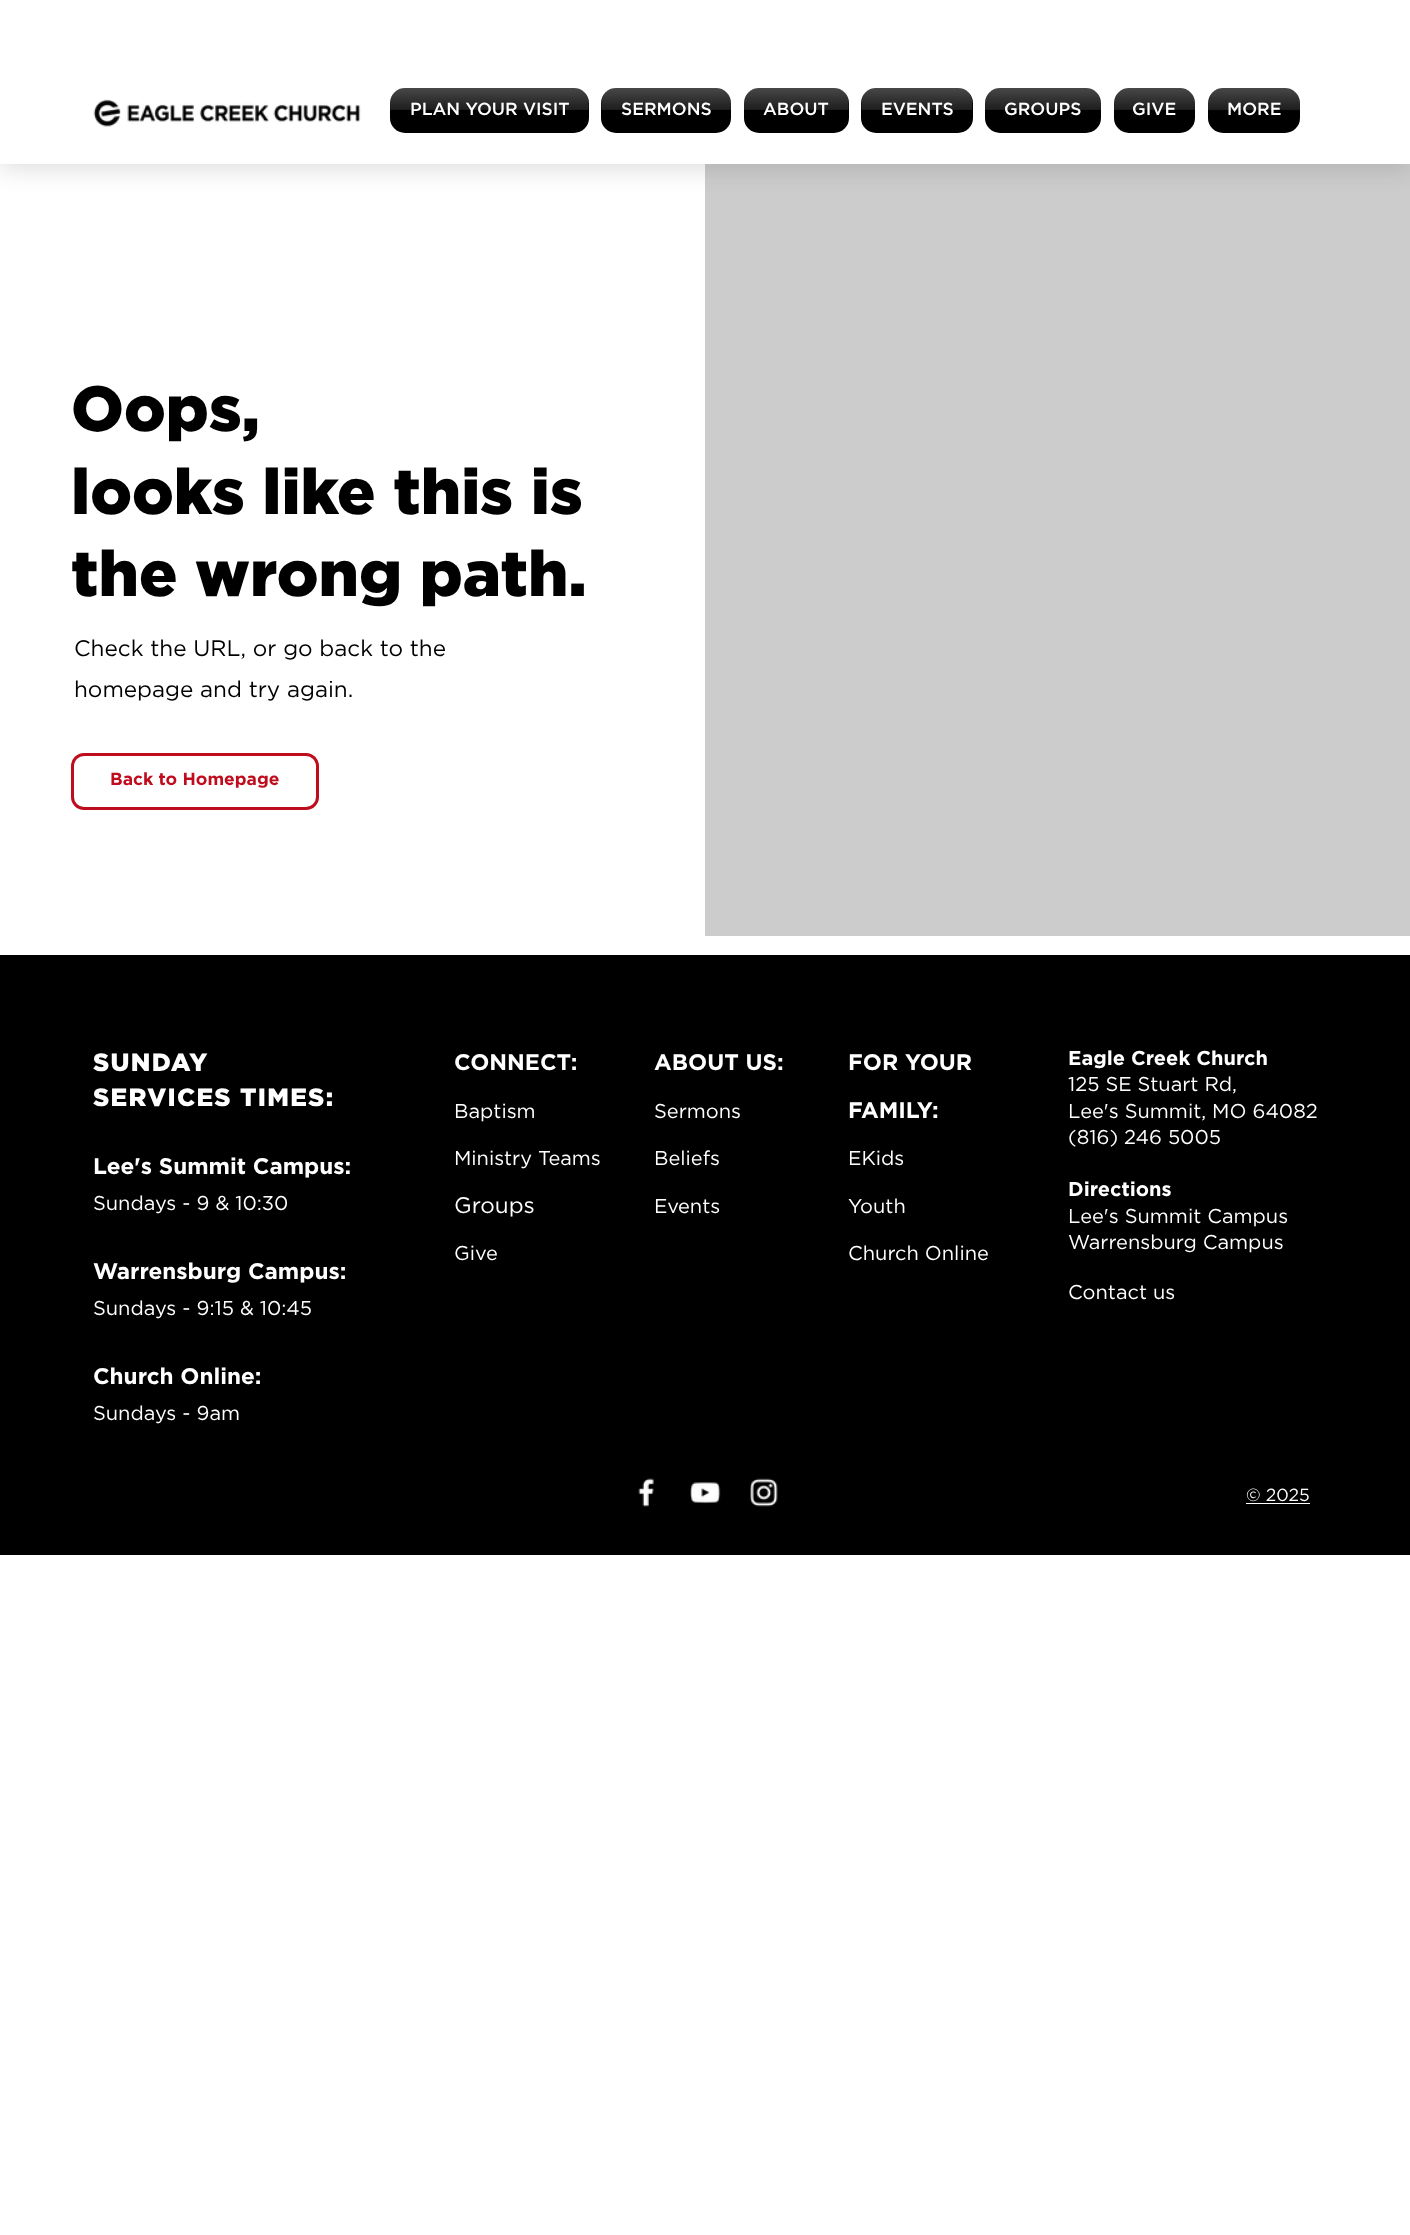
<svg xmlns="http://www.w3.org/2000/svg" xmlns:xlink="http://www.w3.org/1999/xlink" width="1410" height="2235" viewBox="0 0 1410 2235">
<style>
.cls-1{font:500 17.5px Gotham;fill:#ffffff}
.cls-2{font:900 63.75px Gotham;fill:#000000}
.cls-3{font:22.5px Gotham;fill:#000000}
.cls-4{font:bold 17.5px Gotham;fill:#c00d1e}
.cls-5{font:900 25px 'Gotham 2';letter-spacing:1.25px;fill:#ffffff}
.cls-6{font:bold 22.5px Gotham;fill:#ffffff}
.cls-7{font:20px 'Gotham 2';fill:#ffffff}
.cls-8{font:22.5px 'Gotham 2';fill:#ffffff}
.cls-9{font:20px Gotham;fill:#ffffff}
.cls-10{font:bold 20px Gotham;fill:#ffffff}
.cls-11{font:17.5px 'Gotham 2';fill:#ffffff}
</style>
<rect width="100%" height="100%" fill="#ffffff"/>
<rect fill="#cccccc" x="705" y="164" width="705" height="772"/>
<rect fill="#000000" fill-opacity="0.13" filter="blur(12.5px)" x="0" y="5" width="1410" height="164"/>
<rect fill="#ffffff" x="0" y="0" width="1410" height="164"/>
<image xlink:href="image0.png" x="93" y="99" width="268" height="28"/>
<rect fill="#000000" x="390" y="88" width="199" height="45" rx="15"/>
<image xlink:href="image1.png" x="390" y="88" width="199" height="22"/>
<rect fill="#000000" x="601" y="88" width="130" height="45" rx="15"/>
<image xlink:href="image2.png" x="601" y="88" width="130" height="22"/>
<rect fill="#000000" x="744" y="88" width="105" height="45" rx="15"/>
<image xlink:href="image3.png" x="744" y="88" width="105" height="22"/>
<rect fill="#000000" x="861" y="88" width="112" height="45" rx="15"/>
<image xlink:href="image4.png" x="861" y="88" width="112" height="22"/>
<rect fill="#000000" x="985" y="88" width="116" height="45" rx="15"/>
<image xlink:href="image5.png" x="985" y="88" width="116" height="22"/>
<rect fill="#000000" x="1114" y="88" width="81" height="45" rx="15"/>
<image xlink:href="image6.png" x="1114" y="88" width="81" height="22"/>
<rect fill="#000000" x="1208" y="88" width="92" height="45" rx="15"/>
<image xlink:href="image7.png" x="1208" y="88" width="92" height="35"/>
<rect fill="none" stroke="#c00d1e" stroke-width="3" x="72.5" y="754.5" width="245" height="54" rx="11.5"/>
<rect fill="#000000" x="0" y="955" width="1410" height="600"/>
<image xlink:href="image8.png" x="638" y="1478" width="16" height="29"/>
<image xlink:href="image9.png" x="690" y="1482" width="31" height="22"/>
<image xlink:href="image10.png" x="750" y="1478" width="28" height="29"/>
<rect fill="#ffffff" x="1246" y="1503" width="64" height="1"/>
<text class="cls-1" x="410" y="115">PLAN YOUR VISIT</text>
<text class="cls-1" x="621" y="115">SERMONS</text>
<text class="cls-1" x="763" y="115">ABOUT</text>
<text class="cls-1" x="881" y="115">EVENTS</text>
<text class="cls-1" x="1004" y="115">GROUPS</text>
<text class="cls-1" x="1132" y="115">GIVE</text>
<text class="cls-1" x="1227" y="115">MORE</text>
<text class="cls-2"><tspan x="71" y="431">Oops,</tspan><tspan x="71" y="514">looks like this is</tspan><tspan x="71" y="596">the wrong path.</tspan></text>
<text class="cls-3"><tspan x="74" y="656">Check the URL, or go back to the</tspan><tspan x="74" y="697">homepage and try again.</tspan></text>
<text class="cls-4" x="110" y="785">Back to Homepage</text>
<text class="cls-5"><tspan x="93" y="1071">SUNDAY</tspan><tspan x="93" y="1106">SERVICES TIMES:</tspan></text>
<text class="cls-6" x="93" y="1174">Lee's Summit Campus:</text>
<text class="cls-7" x="93" y="1210">Sundays - 9 &amp; 10:30</text>
<text class="cls-6" x="93" y="1279">Warrensburg Campus:</text>
<text class="cls-7" x="93" y="1315">Sundays - 9:15 &amp; 10:45</text>
<text class="cls-6" x="93" y="1384">Church Online:</text>
<text class="cls-7" x="93" y="1420">Sundays - 9am</text>
<text class="cls-6" x="454" y="1070">CONNECT:</text>
<text class="cls-7" x="454" y="1118">Baptism</text>
<text class="cls-7" x="454" y="1165">Ministry Teams</text>
<text class="cls-8" x="454" y="1213">Groups</text>
<text class="cls-7" x="454" y="1260">Give</text>
<text class="cls-6" x="654" y="1070">ABOUT US:</text>
<text class="cls-7" x="654" y="1118">Sermons</text>
<text class="cls-7" x="654" y="1165">Beliefs</text>
<text class="cls-9" x="654" y="1213">Ev</text>
<text class="cls-9" x="678" y="1213">ents</text>
<text class="cls-6" x="848" y="1070">FOR YOUR</text>
<text class="cls-6" x="848" y="1118">FAMILY:</text>
<text class="cls-7" x="848" y="1165">EKids</text>
<text class="cls-7" x="848" y="1213">Youth</text>
<text class="cls-7" x="848" y="1260">Church Online</text>
<text class="cls-10" x="1068" y="1065">Eagle Creek Church</text>
<text class="cls-7"><tspan x="1068" y="1091">125 SE Stuart Rd,</tspan><tspan x="1068" y="1118">Lee's Summit, MO 64082</tspan><tspan x="1068" y="1144">(816) 246 5005</tspan></text>
<text class="cls-10" x="1068" y="1196">Directions</text>
<text class="cls-7"><tspan x="1068" y="1223">Lee's Summit Campus</tspan><tspan x="1068" y="1249">Warrensburg Campus</tspan></text>
<text class="cls-7" x="1068" y="1299">Contact us</text>
<text class="cls-11" x="1246" y="1501">© 2025</text>
</svg>
